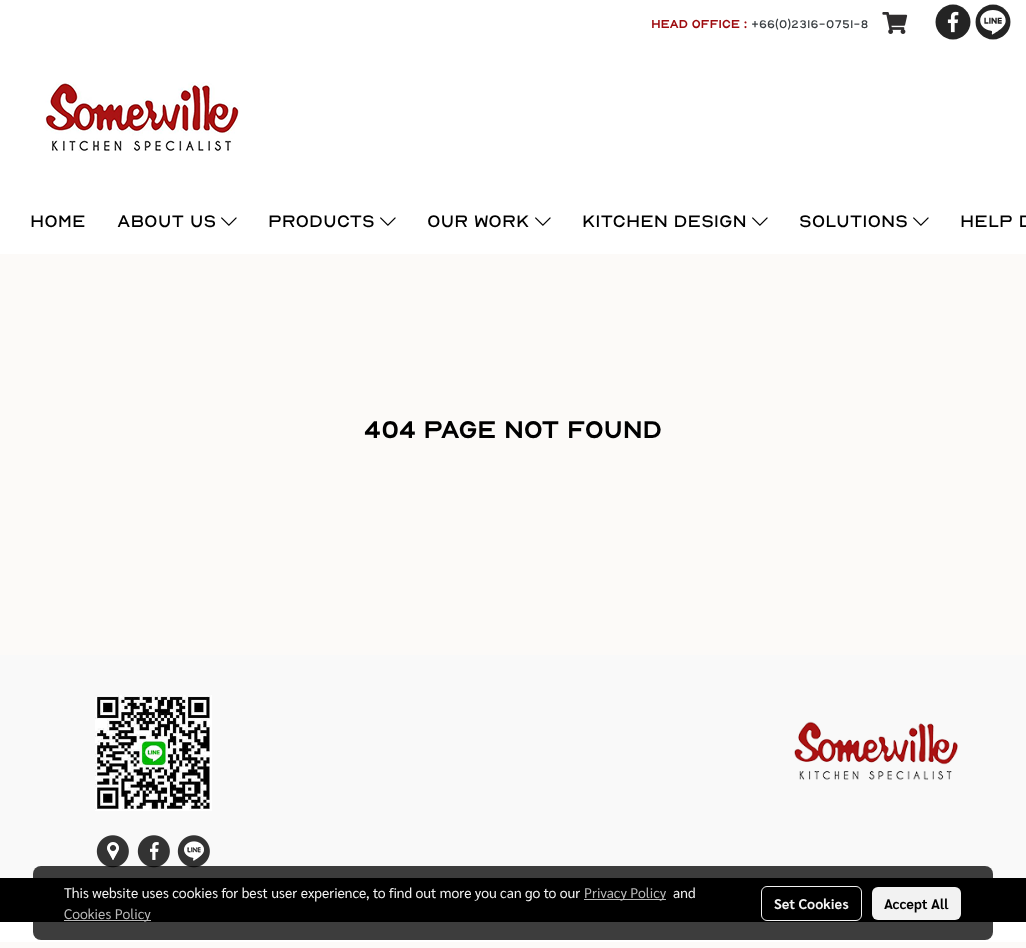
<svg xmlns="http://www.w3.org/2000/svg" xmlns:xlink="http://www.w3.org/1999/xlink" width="1026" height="948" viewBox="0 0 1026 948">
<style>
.cls-1{font:bold 12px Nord;fill:#9e0b0f}
.cls-2{font:12px Nord;fill:#3b4044}
.cls-3{font:18px Nord;fill:#000000}
.cls-4{font:bold 25px Nord;fill:#000000}
.cls-5{font:14px Sarabun;fill:#f3f3f3}
.cls-6{font:14px Sarabun;fill:#b8b8b8}
.cls-7{font:bold 14px Sarabun;fill:#f3f3f3}
.cls-8{font:bold 14px Sarabun;fill:#000000}
</style>
<rect width="100%" height="100%" fill="#fcfaf8"/>
<rect fill="#ffffff" x="0" y="0" width="1026" height="254"/>
<image xlink:href="image0.png" x="882" y="12" width="26" height="22"/>
<path fill="#242424" d="M953 4.5C943.5 4.5 935.5 12.5 935.5 22C935.5 31.5 943.5 39.5 953 39.5C962.5 39.5 970.5 31.5 970.5 22C970.5 12.5 962.5 4.5 953 4.5Z"/>
<image xlink:href="image1.png" x="947" y="11" width="12" height="22"/>
<path fill="#242424" d="M993 4.5C983.5 4.5 975.5 12.5 975.5 22C975.5 31.5 983.5 39.5 993 39.5C1002.5 39.5 1010.5 31.5 1010.5 22C1010.5 12.5 1002.5 4.5 993 4.5Z"/>
<image xlink:href="image2.png" x="975" y="4" width="36" height="36"/>
<image xlink:href="image3.png" x="45" y="82" width="195" height="69"/>
<image xlink:href="image4.png" x="221" y="217" width="16" height="9"/>
<image xlink:href="image4.png" x="380" y="217" width="16" height="9"/>
<image xlink:href="image4.png" x="535" y="217" width="16" height="9"/>
<image xlink:href="image4.png" x="752" y="217" width="16" height="9"/>
<image xlink:href="image4.png" x="913" y="217" width="16" height="9"/>
<rect fill="#f9f9f9" x="0" y="655" width="1026" height="223"/>
<image xlink:href="image5.png" x="95" y="695" width="117" height="116"/>
<image xlink:href="image6.png" x="96" y="835" width="33" height="33"/>
<image xlink:href="image7.png" x="137" y="835" width="33" height="33"/>
<image xlink:href="image8.png" x="177" y="835" width="33" height="33"/>
<image xlink:href="image9.png" x="794" y="721" width="164" height="59"/>
<rect fill="#000000" x="0" y="878" width="1026" height="44"/>
<rect fill="#ffffff" x="0" y="922" width="1026" height="20"/>
<rect fill="#000000" fill-opacity="0.76" x="33" y="866" width="960" height="74" rx="8"/>
<rect fill="#b8b8b8" x="584" y="899" width="82" height="1"/>
<rect fill="#b8b8b8" x="64" y="920" width="87" height="1"/>
<rect fill="none" stroke="#f2f2f2" x="761.5" y="886.5" width="100" height="34" rx="5.5"/>
<rect fill="#f2f2f2" x="872" y="887" width="89" height="33" rx="6"/>
<text class="cls-1" x="651" y="28">HEAD OFFICE :</text>
<text class="cls-2" x="751" y="28">+66(0)2316-0751-8</text>
<text class="cls-3" x="30" y="227">HOME</text>
<text class="cls-3" x="117" y="227">ABOUT US</text>
<text class="cls-3" x="268" y="227">PRODUCTS</text>
<text class="cls-3" x="427" y="227">OUR WORK</text>
<text class="cls-3" x="582" y="227">KITCHEN DESIGN</text>
<text class="cls-3" x="799" y="227">SOLUTIONS</text>
<text class="cls-3" x="960" y="227">HELP D</text>
<text class="cls-4" x="364" y="438">404 PAGE NOT FOUND</text>
<text class="cls-5" x="64" y="898">This website uses cookies for best user experience, to find out more you can go to our</text>
<text class="cls-6" x="584" y="898">Privacy Policy</text>
<text class="cls-5" x="673" y="898">and</text>
<text class="cls-6" x="64" y="919">Cookies Policy</text>
<text class="cls-7" x="774" y="909">Set Cookies</text>
<text class="cls-8" x="884" y="909">Accept All</text>
</svg>
